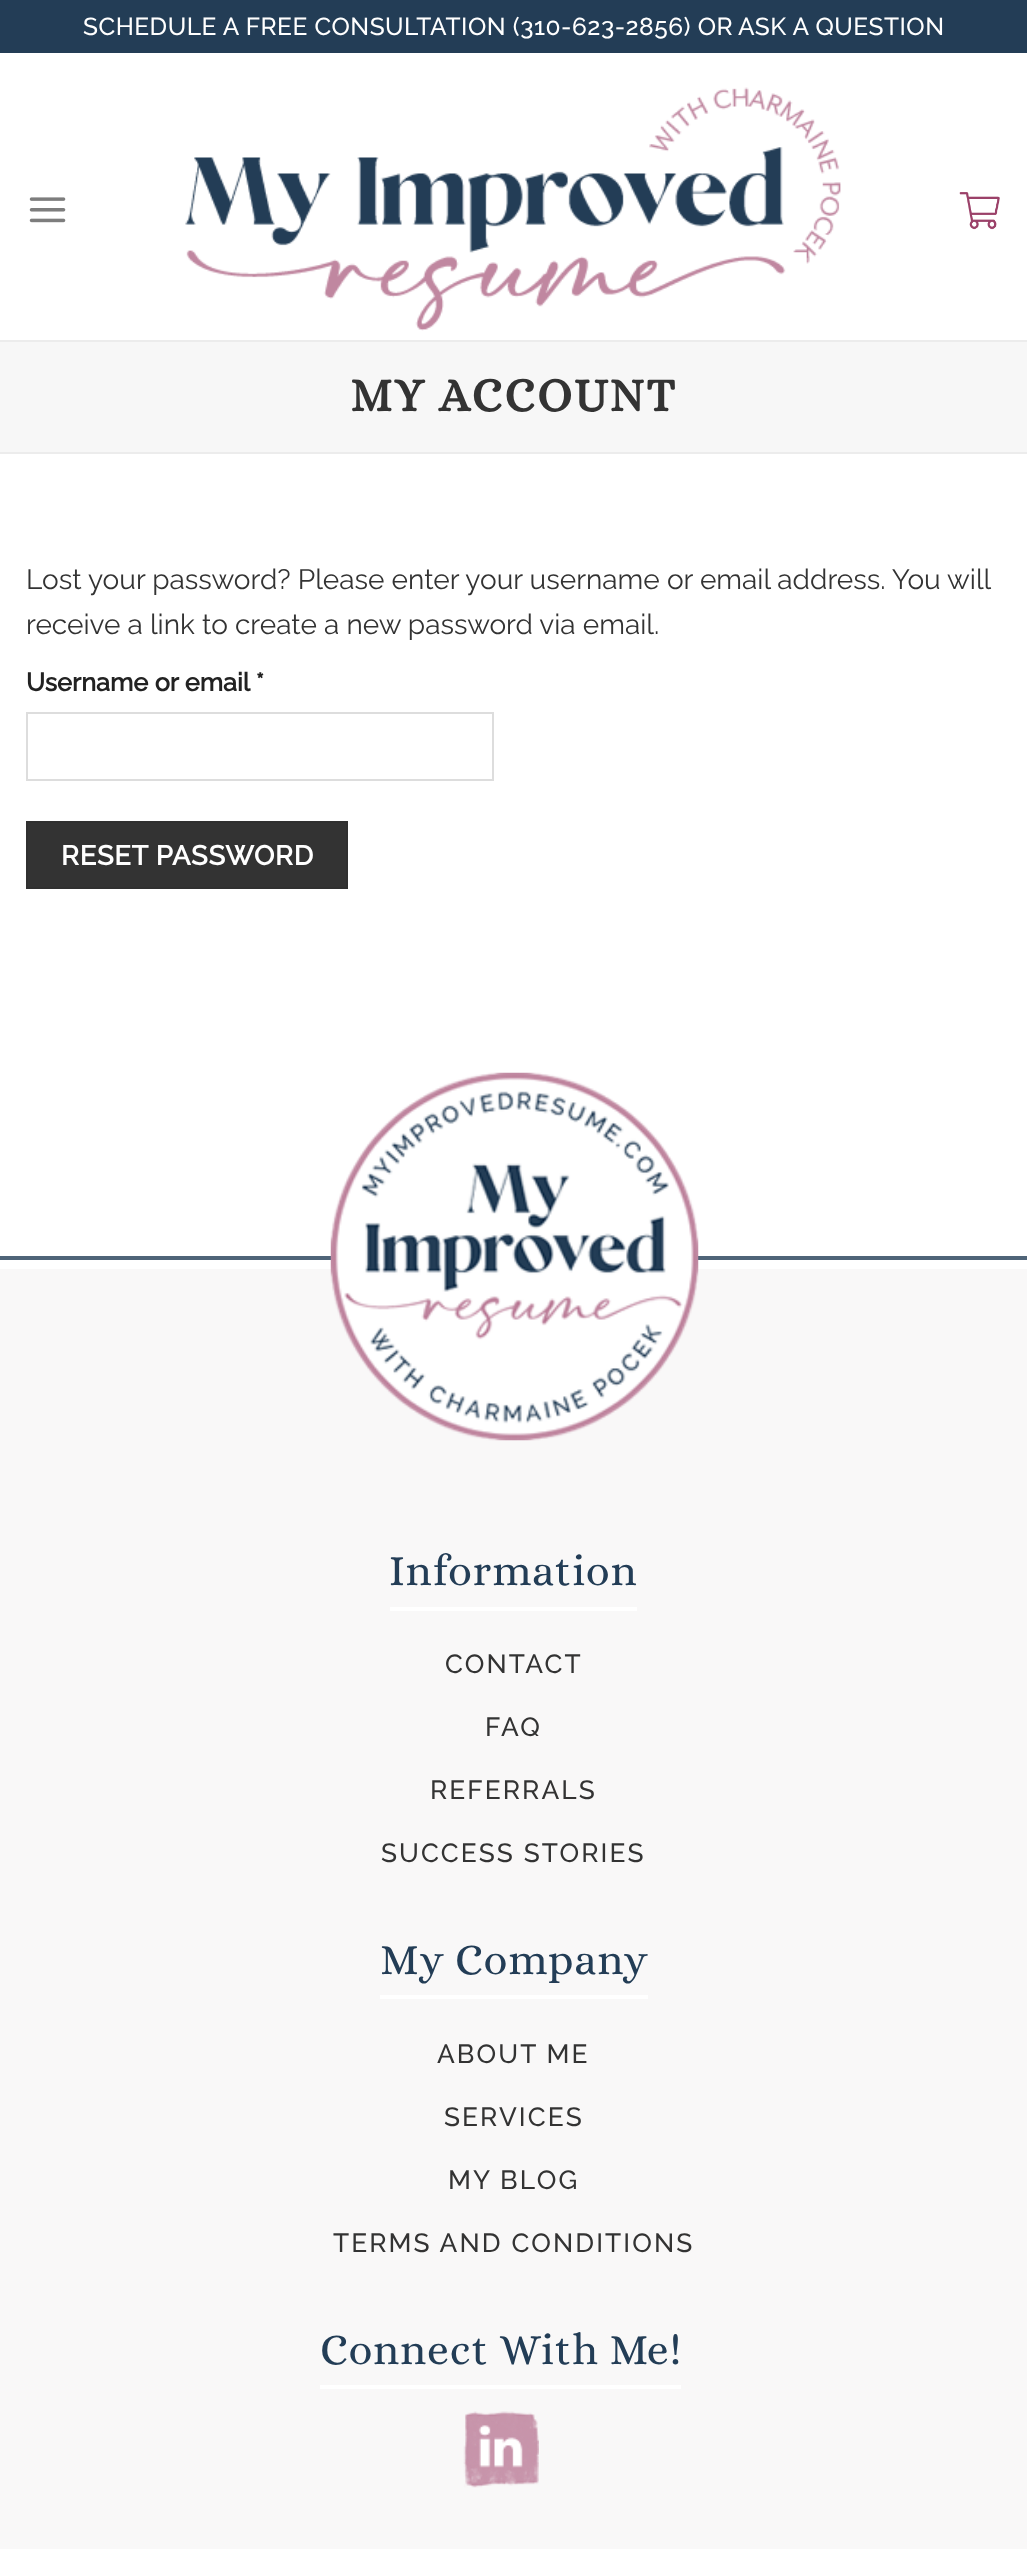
<svg xmlns="http://www.w3.org/2000/svg" xmlns:xlink="http://www.w3.org/1999/xlink" width="1027" height="2549" viewBox="0 0 1027 2549">
<style>
.cls-1{font:500 24.5px Raleway;letter-spacing:0.5px;fill:#ffffff}
.cls-2{font:bold 47.5px Alice;letter-spacing:2.4px;fill:#333333}
.cls-3{font:28px Raleway;fill:#333333}
.cls-4{font:bold 25.25px Raleway;fill:#222222}
.cls-5{font:bold 27.25px Raleway;letter-spacing:0.75px;fill:#ffffff}
.cls-6{font:43.75px Alice;letter-spacing:0.9px;fill:#233d56}
.cls-7{font:500 26.25px Raleway;letter-spacing:2.1px;fill:#333333}
</style>
<rect width="100%" height="100%" fill="#ffffff"/>
<rect fill="#233d56" x="0" y="0" width="1027" height="53"/>
<image xlink:href="image0.png" x="29" y="197" width="37" height="26"/>
<image xlink:href="image1.png" x="185" y="87" width="656" height="244"/>
<image xlink:href="image2.png" x="959" y="192" width="41" height="38"/>
<rect fill="#f7f7f7" x="0" y="342" width="1027" height="110"/>
<rect fill="#ececec" x="0" y="340" width="1027" height="2"/>
<rect fill="#ececec" x="0" y="452" width="1027" height="2"/>
<rect fill="none" stroke="#dddddd" stroke-width="2" x="27" y="713" width="466" height="67"/>
<rect fill="#333333" stroke="#303030" stroke-width="2" x="27" y="822" width="320" height="66"/>
<rect fill="#4f6478" x="0" y="1256" width="1027" height="4"/>
<rect fill="#f9f8f8" x="0" y="1269" width="1027" height="1280"/>
<image xlink:href="image3.png" x="330" y="1072" width="369" height="369"/>
<rect fill="#ffffff" x="390" y="1607" width="247" height="4"/>
<rect fill="#ffffff" x="380" y="1995" width="268" height="4"/>
<rect fill="#ffffff" x="320" y="2385" width="361" height="4"/>
<image xlink:href="image4.png" x="463" y="2411" width="76" height="77"/>
<text class="cls-1" x="83" y="35">SCHEDULE A FREE CONSULTATION (310-623-2856) OR</text>
<text class="cls-1" x="738" y="35">ASK A QUESTION</text>
<text class="cls-2" x="350" y="411">MY ACCOUNT</text>
<text class="cls-3"><tspan x="26" y="589">Lost your password? Please enter your username or email address. You will</tspan><tspan x="26" y="634">receive a link to create a new password via email.</tspan></text>
<text class="cls-4" x="26" y="691">Username or email *</text>
<text class="cls-5" x="61" y="865">RESET PASSWORD</text>
<text class="cls-6" x="389" y="1585">Information</text>
<text class="cls-7" x="445" y="1673">CONTACT</text>
<text class="cls-7" x="485" y="1736">FAQ</text>
<text class="cls-7" x="430" y="1799">REFERRALS</text>
<text class="cls-7" x="381" y="1862">SUCCESS STORIES</text>
<text class="cls-6" x="380" y="1974">My Company</text>
<text class="cls-7" x="437" y="2063">ABOUT ME</text>
<text class="cls-7" x="444" y="2126">SERVICES</text>
<text class="cls-7" x="448" y="2189">MY BLOG</text>
<text class="cls-7" x="333" y="2252">TERMS AND CONDITIONS</text>
<text class="cls-6" x="320" y="2364">Connect With Me!</text>
</svg>
